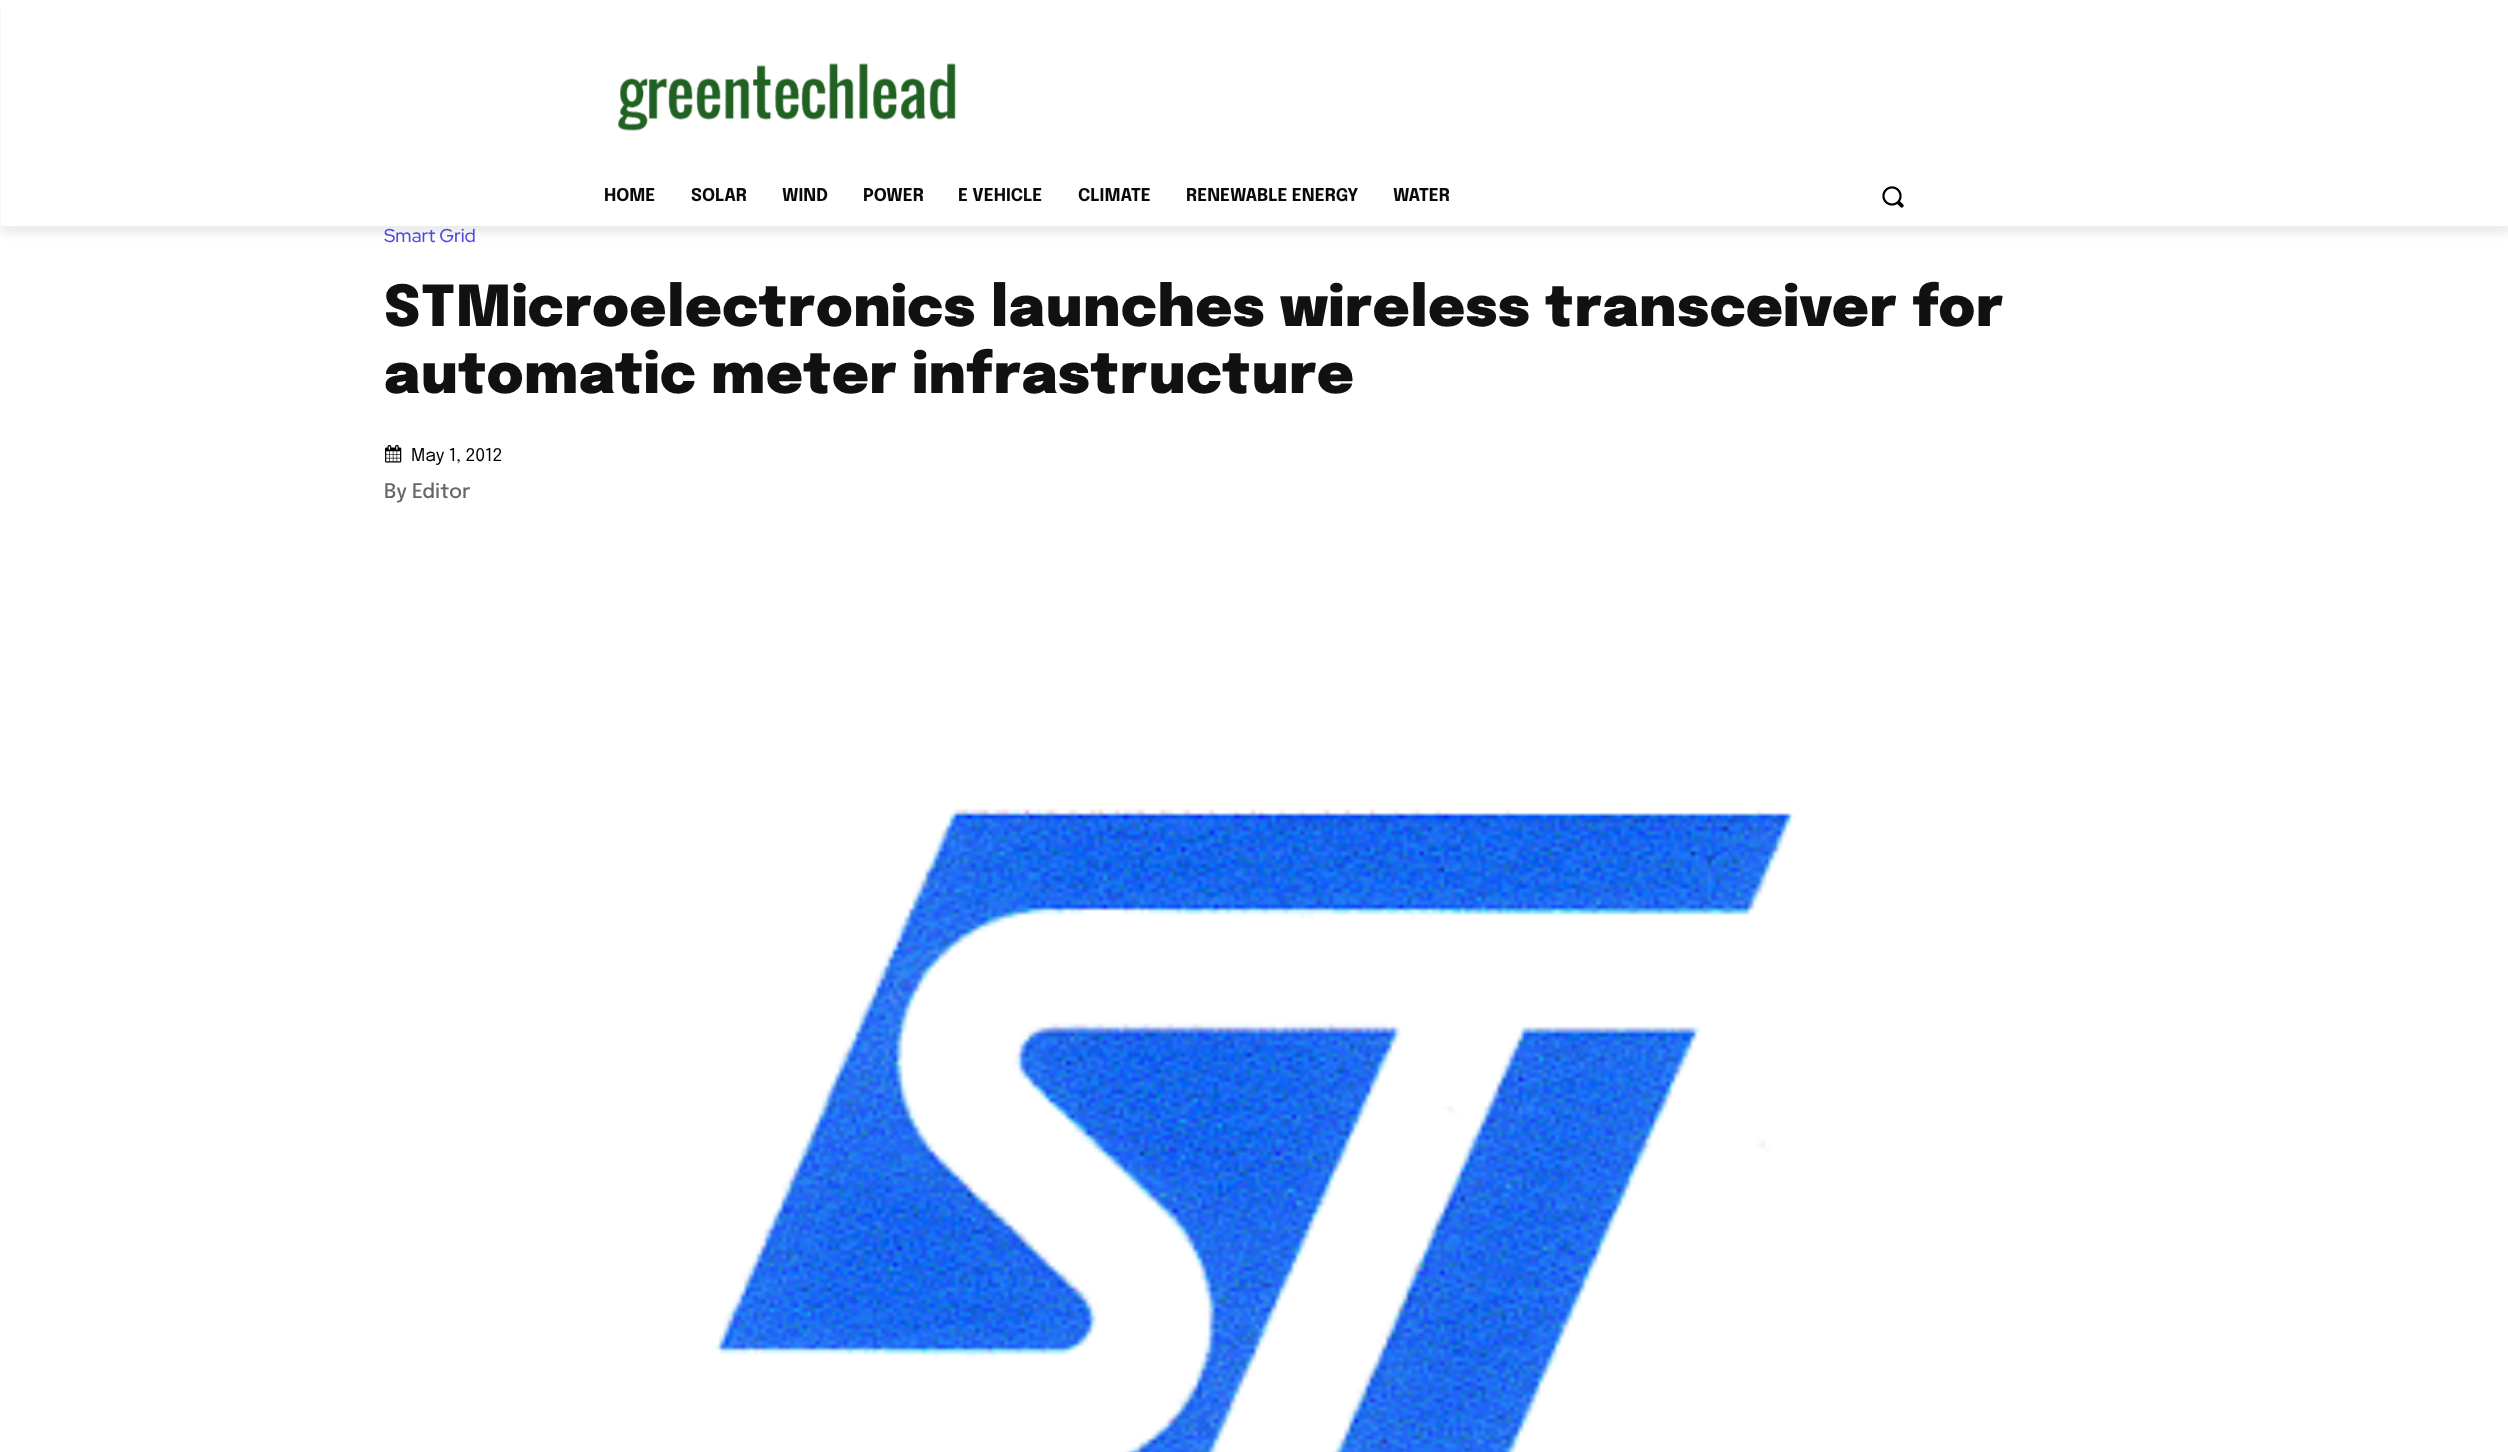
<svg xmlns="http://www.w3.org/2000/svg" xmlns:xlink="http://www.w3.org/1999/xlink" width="2508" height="1452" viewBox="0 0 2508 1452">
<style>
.cls-1{font:bold 17.5px Epilogue;fill:#0a0a0a}
.cls-2{font:500 18.75px Red Hat Display;fill:#504bdc}
.cls-3{font:900 56.25px Epilogue;letter-spacing:0.62px;fill:#111111}
.cls-4{font:17.5px Epilogue;fill:#000000}
.cls-5{font:500 20px Epilogue;fill:#666666}
</style>
<defs>
<clipPath id="clip1"><path d="M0 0H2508V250H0ZM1 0H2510V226H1Z" clip-rule="evenodd"/></clipPath>
</defs>
<rect width="100%" height="100%" fill="#ffffff"/>
<image xlink:href="image0.png" x="618" y="63" width="338" height="68"/>
<g clip-path="url(#clip1)">
<rect fill="#000000" fill-opacity="0.08" filter="blur(5px)" x="1" y="8" width="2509" height="226"/>
</g>
<image xlink:href="image1.png" x="1882" y="186" width="22" height="22"/>
<image xlink:href="image2.png" x="385" y="445" width="17" height="18"/>
<image xlink:href="image3.png" x="715" y="808" width="1080" height="644"/>
<text class="cls-1" x="604" y="201">HOME</text>
<text class="cls-1" x="691" y="201">SOLAR</text>
<text class="cls-1" x="782" y="201">WIND</text>
<text class="cls-1" x="863" y="201">POWER</text>
<text class="cls-1" x="958" y="201">E VEHICLE</text>
<text class="cls-1" x="1078" y="201">CLIMATE</text>
<text class="cls-1" x="1186" y="201">RENEWABLE ENERGY</text>
<text class="cls-1" x="1393" y="201">WATER</text>
<text class="cls-2" x="384" y="242">Smart Grid</text>
<text class="cls-3"><tspan x="384" y="326">STMicroelectronics launches wireless transceiver for</tspan><tspan x="384" y="393">automatic meter infrastructure</tspan></text>
<text class="cls-4" x="411" y="461">May 1, 2012</text>
<text class="cls-5" x="384" y="498">By Editor</text>
</svg>
